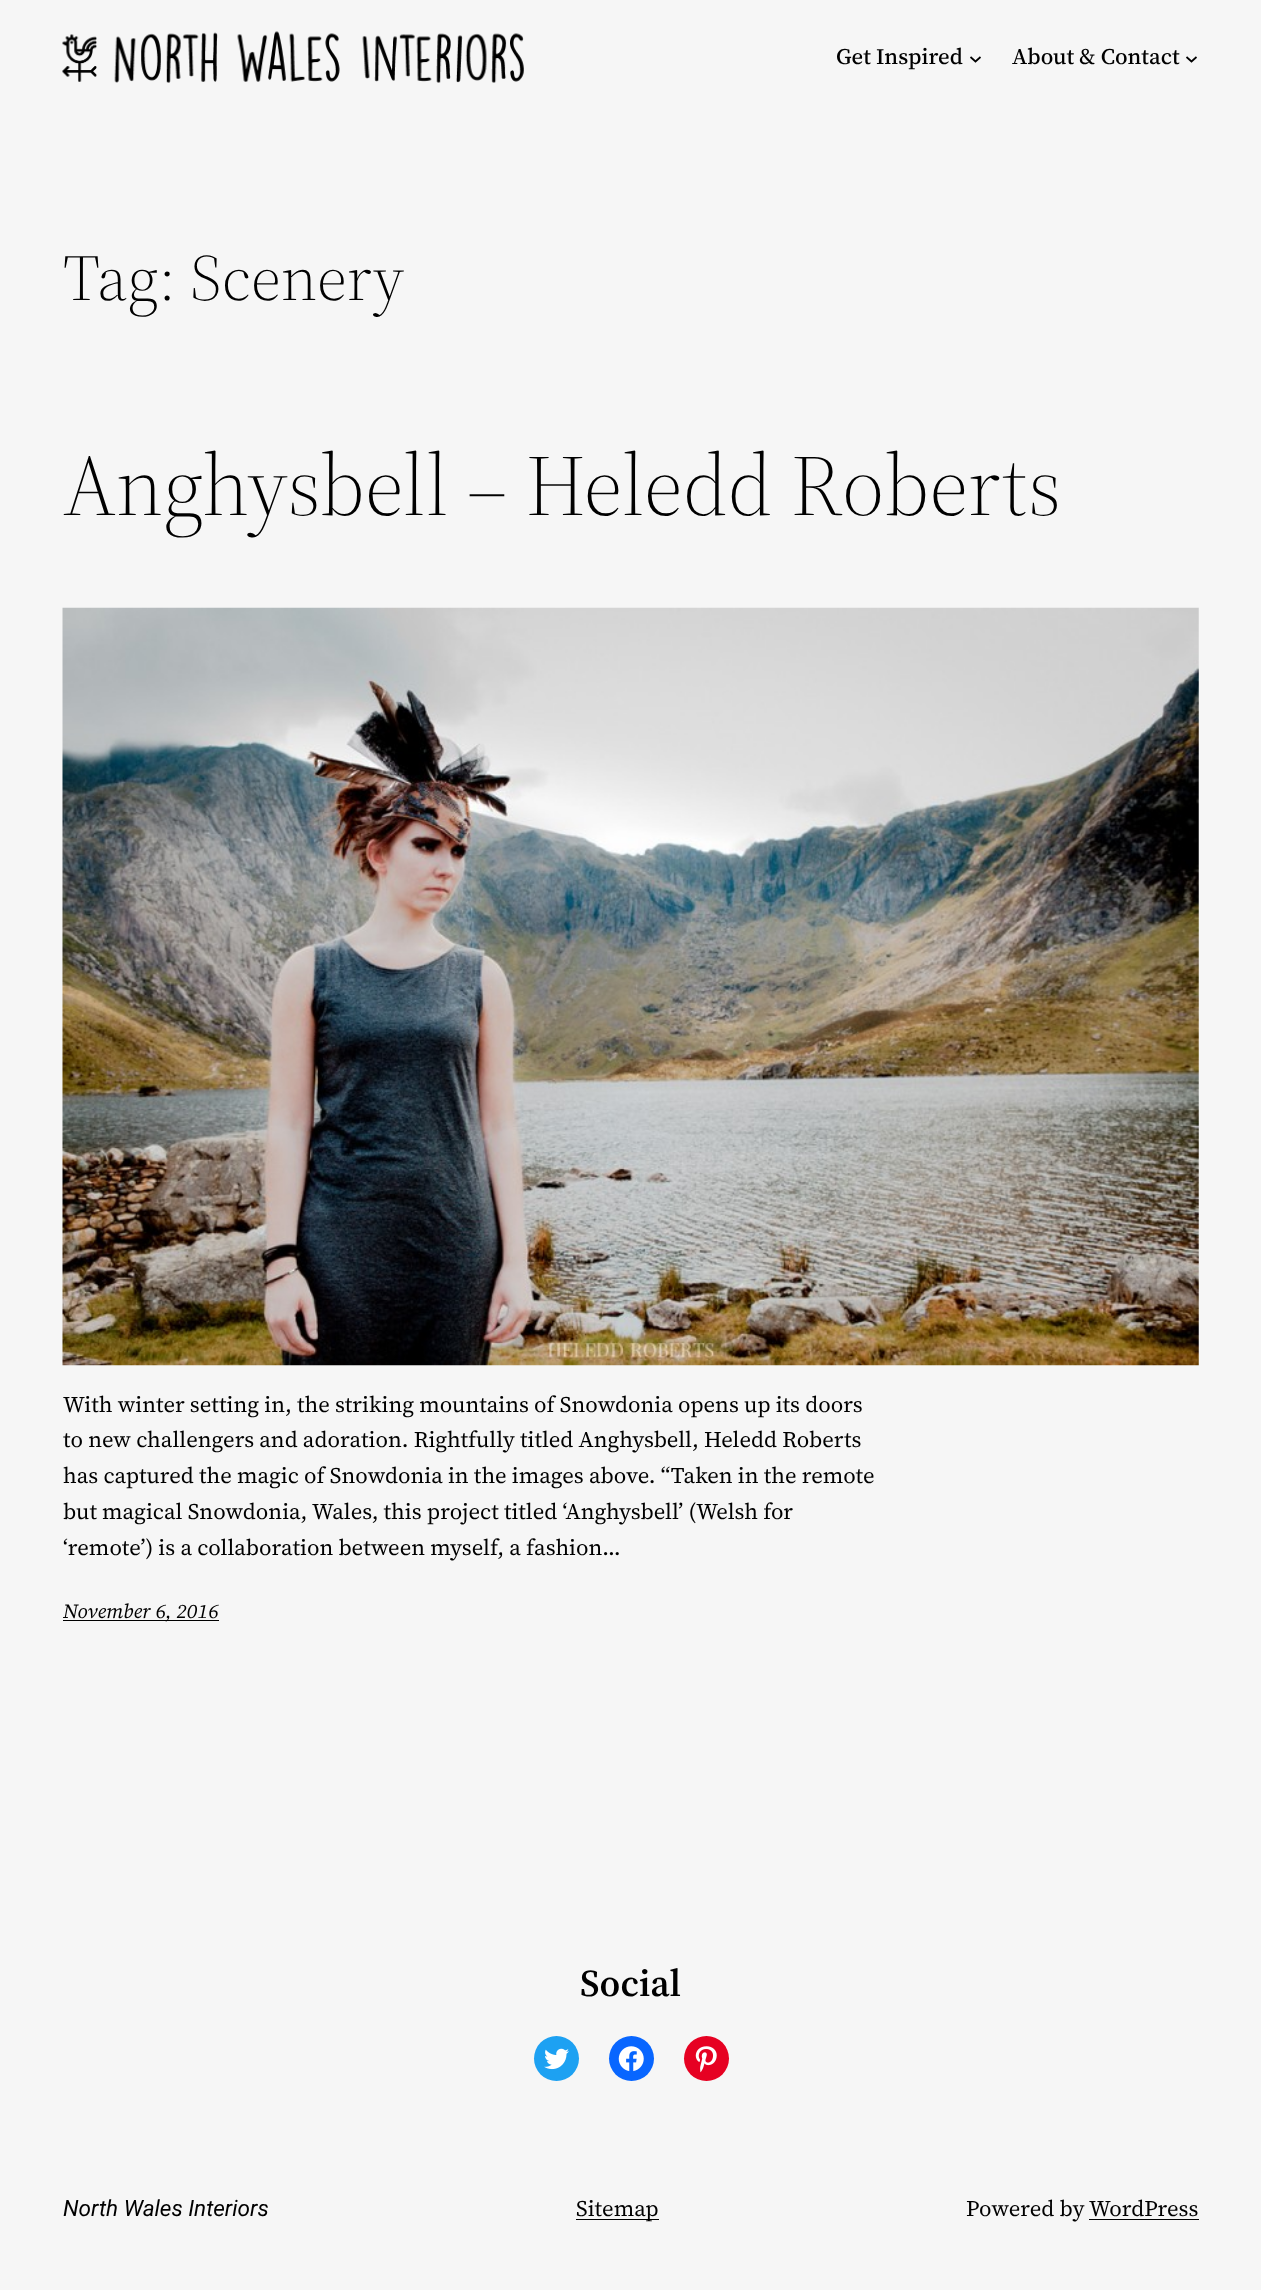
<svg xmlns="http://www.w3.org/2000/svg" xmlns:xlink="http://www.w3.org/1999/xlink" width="1261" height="2290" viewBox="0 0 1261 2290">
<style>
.cls-1{font:500 22.3px 'Source Serif 4';fill:#000000}
.cls-2{font:300 65px 'Source Serif 4';fill:#000000}
.cls-3{font:300 86.25px 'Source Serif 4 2';fill:#000000}
.cls-4{font:22.3px 'Source Serif 4';fill:#000000}
.cls-5{font:italic 20px 'Source Serif 4';fill:#000000}
.cls-6{font:600 38px 'Source Serif 4';fill:#000000}
.cls-7{font:italic 22.5px Roboto;fill:#000000}
</style>
<rect width="100%" height="100%" fill="#f6f6f6"/>
<image xlink:href="image0.png" x="62" y="31" width="462" height="52"/>
<path fill="none" stroke="#000000" stroke-width="1.7" d="M970.5 57L975.5 61.5L980.5 57"/>
<path fill="none" stroke="#000000" stroke-width="1.7" d="M1186.5 57L1191.5 61.5L1196.5 57"/>
<image xlink:href="image1.png" x="62" y="607" width="1137" height="759"/>
<rect fill="#000000" x="63" y="1620" width="156" height="1"/>
<circle fill="#1da1f2" cx="556.5" cy="2058.5" r="22.5"/>
<image xlink:href="image2.png" x="544" y="2048" width="25" height="22"/>
<circle fill="#0866ff" cx="631.5" cy="2058.5" r="22.5"/>
<image xlink:href="image3.png" x="618" y="2046" width="26" height="26"/>
<circle fill="#e60122" cx="706.5" cy="2058.5" r="22.5"/>
<image xlink:href="image4.png" x="695" y="2046" width="22" height="27"/>
<rect fill="#000000" x="576" y="2219" width="83" height="1"/>
<rect fill="#000000" x="1089" y="2219" width="110" height="1"/>
<text class="cls-1" x="836" y="64">Get Inspired</text>
<text class="cls-1" x="1012" y="64">About &amp; Contact</text>
<text class="cls-2" x="63" y="300">Tag: Scenery</text>
<text class="cls-3" x="63" y="515">Anghysbell – Heledd Roberts</text>
<text class="cls-4"><tspan x="63" y="1412">With winter setting in, the striking mountains of Snowdonia opens up its doors</tspan><tspan x="63" y="1447">to new challengers and adoration. Rightfully titled Anghysbell, Heledd Roberts</tspan><tspan x="63" y="1483">has captured the magic of Snowdonia in the images above. “Taken in the remote</tspan><tspan x="63" y="1519">but magical Snowdonia, Wales, this project titled ‘Anghysbell’ (Welsh for</tspan><tspan x="63" y="1555">‘remote’) is a collaboration between myself, a fashion…</tspan></text>
<text class="cls-5" x="63" y="1618">November 6, 2016</text>
<text class="cls-6" x="580" y="1996">Social</text>
<text class="cls-7" x="63" y="2216">North Wales Interiors</text>
<text class="cls-4" x="576" y="2216">Sitemap</text>
<text class="cls-4" x="966" y="2216">Powered by</text>
<text class="cls-4" x="1089" y="2216">WordPress</text>
</svg>
